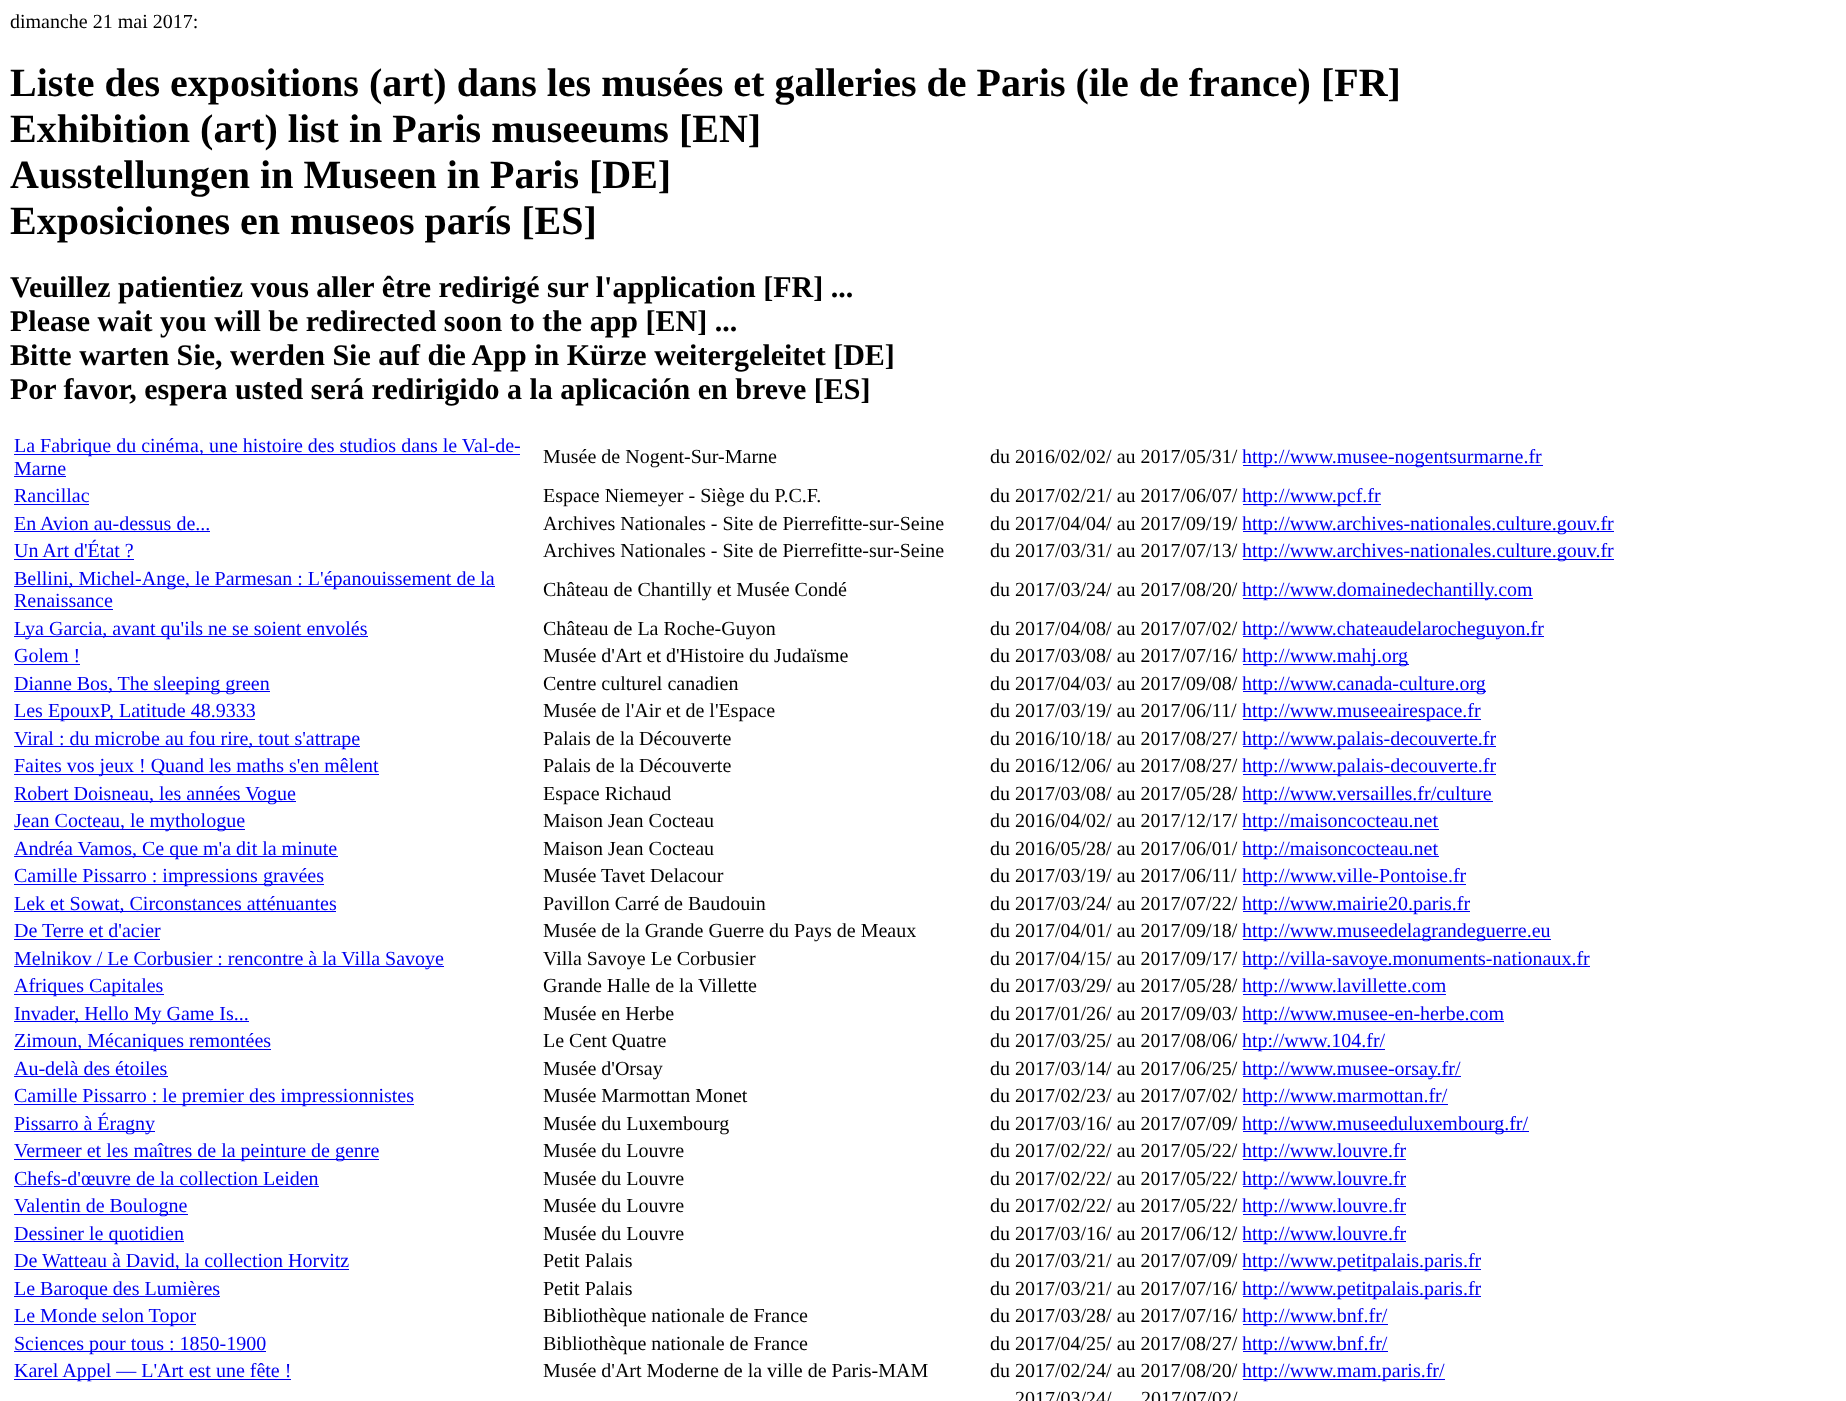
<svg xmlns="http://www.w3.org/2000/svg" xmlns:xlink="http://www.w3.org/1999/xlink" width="1846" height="1401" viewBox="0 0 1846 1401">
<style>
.cls-1{font:20px Liberation Serif;fill:#000000}
.cls-2{font:bold 40px Liberation Serif;fill:#000000}
.cls-3{font:bold 30px Liberation Serif;fill:#000000}
.cls-4{font:20px Liberation Serif;fill:#0000ee}
</style>
<rect width="100%" height="100%" fill="#ffffff"/>
<rect fill="#0000ee" x="14" y="454" width="506" height="1"/>
<rect fill="#0000ee" x="14" y="476" width="52" height="1"/>
<rect fill="#0000ee" x="1243" y="465" width="300" height="1"/>
<rect fill="#0000ee" x="14" y="504" width="75" height="1"/>
<rect fill="#0000ee" x="1243" y="504" width="138" height="1"/>
<rect fill="#0000ee" x="14" y="531" width="196" height="1"/>
<rect fill="#0000ee" x="1243" y="531" width="371" height="1"/>
<rect fill="#0000ee" x="14" y="559" width="120" height="1"/>
<rect fill="#0000ee" x="1243" y="559" width="371" height="1"/>
<rect fill="#0000ee" x="14" y="586" width="481" height="1"/>
<rect fill="#0000ee" x="14" y="609" width="99" height="1"/>
<rect fill="#0000ee" x="1243" y="598" width="290" height="1"/>
<rect fill="#0000ee" x="14" y="636" width="354" height="1"/>
<rect fill="#0000ee" x="1243" y="636" width="301" height="1"/>
<rect fill="#0000ee" x="14" y="664" width="66" height="1"/>
<rect fill="#0000ee" x="1243" y="664" width="166" height="1"/>
<rect fill="#0000ee" x="14" y="691" width="256" height="1"/>
<rect fill="#0000ee" x="1243" y="691" width="243" height="1"/>
<rect fill="#0000ee" x="14" y="719" width="241" height="1"/>
<rect fill="#0000ee" x="1243" y="719" width="238" height="1"/>
<rect fill="#0000ee" x="14" y="746" width="346" height="1"/>
<rect fill="#0000ee" x="1243" y="746" width="253" height="1"/>
<rect fill="#0000ee" x="14" y="774" width="365" height="1"/>
<rect fill="#0000ee" x="1243" y="774" width="253" height="1"/>
<rect fill="#0000ee" x="14" y="801" width="282" height="1"/>
<rect fill="#0000ee" x="1243" y="801" width="250" height="1"/>
<rect fill="#0000ee" x="14" y="829" width="231" height="1"/>
<rect fill="#0000ee" x="1243" y="829" width="196" height="1"/>
<rect fill="#0000ee" x="14" y="856" width="324" height="1"/>
<rect fill="#0000ee" x="1243" y="856" width="196" height="1"/>
<rect fill="#0000ee" x="14" y="884" width="310" height="1"/>
<rect fill="#0000ee" x="1243" y="884" width="223" height="1"/>
<rect fill="#0000ee" x="14" y="911" width="322" height="1"/>
<rect fill="#0000ee" x="1243" y="911" width="227" height="1"/>
<rect fill="#0000ee" x="14" y="939" width="146" height="1"/>
<rect fill="#0000ee" x="1243" y="939" width="308" height="1"/>
<rect fill="#0000ee" x="14" y="966" width="430" height="1"/>
<rect fill="#0000ee" x="1243" y="966" width="347" height="1"/>
<rect fill="#0000ee" x="14" y="994" width="150" height="1"/>
<rect fill="#0000ee" x="1243" y="994" width="203" height="1"/>
<rect fill="#0000ee" x="14" y="1021" width="235" height="1"/>
<rect fill="#0000ee" x="1243" y="1021" width="261" height="1"/>
<rect fill="#0000ee" x="14" y="1049" width="257" height="1"/>
<rect fill="#0000ee" x="1243" y="1049" width="142" height="1"/>
<rect fill="#0000ee" x="14" y="1076" width="154" height="1"/>
<rect fill="#0000ee" x="1243" y="1076" width="218" height="1"/>
<rect fill="#0000ee" x="14" y="1104" width="400" height="1"/>
<rect fill="#0000ee" x="1243" y="1104" width="205" height="1"/>
<rect fill="#0000ee" x="14" y="1131" width="141" height="1"/>
<rect fill="#0000ee" x="1243" y="1131" width="286" height="1"/>
<rect fill="#0000ee" x="14" y="1159" width="365" height="1"/>
<rect fill="#0000ee" x="1243" y="1159" width="163" height="1"/>
<rect fill="#0000ee" x="14" y="1186" width="305" height="1"/>
<rect fill="#0000ee" x="1243" y="1186" width="163" height="1"/>
<rect fill="#0000ee" x="14" y="1214" width="174" height="1"/>
<rect fill="#0000ee" x="1243" y="1214" width="163" height="1"/>
<rect fill="#0000ee" x="14" y="1241" width="170" height="1"/>
<rect fill="#0000ee" x="1243" y="1241" width="163" height="1"/>
<rect fill="#0000ee" x="14" y="1269" width="335" height="1"/>
<rect fill="#0000ee" x="1243" y="1269" width="238" height="1"/>
<rect fill="#0000ee" x="14" y="1296" width="206" height="1"/>
<rect fill="#0000ee" x="1243" y="1296" width="238" height="1"/>
<rect fill="#0000ee" x="14" y="1324" width="182" height="1"/>
<rect fill="#0000ee" x="1243" y="1324" width="145" height="1"/>
<rect fill="#0000ee" x="14" y="1351" width="252" height="1"/>
<rect fill="#0000ee" x="1243" y="1351" width="145" height="1"/>
<rect fill="#0000ee" x="14" y="1379" width="277" height="1"/>
<rect fill="#0000ee" x="1243" y="1379" width="202" height="1"/>
<text class="cls-1" x="10" y="28">dimanche 21 mai 2017:</text>
<text class="cls-2"><tspan x="10" y="96">Liste des expositions (art) dans les musées et galleries de Paris (ile de france) [FR]</tspan><tspan x="10" y="142">Exhibition (art) list in Paris museeums [EN]</tspan><tspan x="10" y="188">Ausstellungen in Museen in Paris [DE]</tspan><tspan x="10" y="234">Exposiciones en museos parís [ES]</tspan></text>
<text class="cls-3"><tspan x="10" y="297">Veuillez patientiez vous aller être redirigé sur l'application [FR] ...</tspan><tspan x="10" y="331">Please wait you will be redirected soon to the app [EN] ...</tspan><tspan x="10" y="365">Bitte warten Sie, werden Sie auf die App in Kürze weitergeleitet [DE]</tspan><tspan x="10" y="399">Por favor, espera usted será redirigido a la aplicación en breve [ES]</tspan></text>
<text class="cls-4"><tspan x="14" y="452">La Fabrique du cinéma, une histoire des studios dans le Val-de-</tspan><tspan x="14" y="475">Marne</tspan></text>
<text class="cls-1" x="543" y="463">Musée de Nogent-Sur-Marne</text>
<text class="cls-1" x="990" y="463">du 2016/02/02/ au 2017/05/31/</text>
<text class="cls-4" x="1242" y="463">http://www.musee-nogentsurmarne.fr</text>
<text class="cls-4" x="14" y="502">Rancillac</text>
<text class="cls-1" x="543" y="502">Espace Niemeyer - Siège du P.C.F.</text>
<text class="cls-1" x="990" y="502">du 2017/02/21/ au 2017/06/07/</text>
<text class="cls-4" x="1242" y="502">http://www.pcf.fr</text>
<text class="cls-4" x="14" y="530">En Avion au-dessus de...</text>
<text class="cls-1" x="543" y="530">Archives Nationales - Site de Pierrefitte-sur-Seine</text>
<text class="cls-1" x="990" y="530">du 2017/04/04/ au 2017/09/19/</text>
<text class="cls-4" x="1242" y="530">http://www.archives-nationales.culture.gouv.fr</text>
<text class="cls-4" x="14" y="557">Un Art d'État ?</text>
<text class="cls-1" x="543" y="557">Archives Nationales - Site de Pierrefitte-sur-Seine</text>
<text class="cls-1" x="990" y="557">du 2017/03/31/ au 2017/07/13/</text>
<text class="cls-4" x="1242" y="557">http://www.archives-nationales.culture.gouv.fr</text>
<text class="cls-4"><tspan x="14" y="585">Bellini, Michel-Ange, le Parmesan : L'épanouissement de la</tspan><tspan x="14" y="607">Renaissance</tspan></text>
<text class="cls-1" x="543" y="596">Château de Chantilly et Musée Condé</text>
<text class="cls-1" x="990" y="596">du 2017/03/24/ au 2017/08/20/</text>
<text class="cls-4" x="1242" y="596">http://www.domainedechantilly.com</text>
<text class="cls-4" x="14" y="635">Lya Garcia, avant qu'ils ne se soient envolés</text>
<text class="cls-1" x="543" y="635">Château de La Roche-Guyon</text>
<text class="cls-1" x="990" y="635">du 2017/04/08/ au 2017/07/02/</text>
<text class="cls-4" x="1242" y="635">http://www.chateaudelarocheguyon.fr</text>
<text class="cls-4" x="14" y="662">Golem !</text>
<text class="cls-1" x="543" y="662">Musée d'Art et d'Histoire du Judaïsme</text>
<text class="cls-1" x="990" y="662">du 2017/03/08/ au 2017/07/16/</text>
<text class="cls-4" x="1242" y="662">http://www.mahj.org</text>
<text class="cls-4" x="14" y="690">Dianne Bos, The sleeping green</text>
<text class="cls-1" x="543" y="690">Centre culturel canadien</text>
<text class="cls-1" x="990" y="690">du 2017/04/03/ au 2017/09/08/</text>
<text class="cls-4" x="1242" y="690">http://www.canada-culture.org</text>
<text class="cls-4" x="14" y="717">Les EpouxP, Latitude 48.9333</text>
<text class="cls-1" x="543" y="717">Musée de l'Air et de l'Espace</text>
<text class="cls-1" x="990" y="717">du 2017/03/19/ au 2017/06/11/</text>
<text class="cls-4" x="1242" y="717">http://www.museeairespace.fr</text>
<text class="cls-4" x="14" y="745">Viral : du microbe au fou rire, tout s'attrape</text>
<text class="cls-1" x="543" y="745">Palais de la Découverte</text>
<text class="cls-1" x="990" y="745">du 2016/10/18/ au 2017/08/27/</text>
<text class="cls-4" x="1242" y="745">http://www.palais-decouverte.fr</text>
<text class="cls-4" x="14" y="772">Faites vos jeux ! Quand les maths s'en mêlent</text>
<text class="cls-1" x="543" y="772">Palais de la Découverte</text>
<text class="cls-1" x="990" y="772">du 2016/12/06/ au 2017/08/27/</text>
<text class="cls-4" x="1242" y="772">http://www.palais-decouverte.fr</text>
<text class="cls-4" x="14" y="800">Robert Doisneau, les années Vogue</text>
<text class="cls-1" x="543" y="800">Espace Richaud</text>
<text class="cls-1" x="990" y="800">du 2017/03/08/ au 2017/05/28/</text>
<text class="cls-4" x="1242" y="800">http://www.versailles.fr/culture</text>
<text class="cls-4" x="14" y="827">Jean Cocteau, le mythologue</text>
<text class="cls-1" x="543" y="827">Maison Jean Cocteau</text>
<text class="cls-1" x="990" y="827">du 2016/04/02/ au 2017/12/17/</text>
<text class="cls-4" x="1242" y="827">http://maisoncocteau.net</text>
<text class="cls-4" x="14" y="855">Andréa Vamos, Ce que m'a dit la minute</text>
<text class="cls-1" x="543" y="855">Maison Jean Cocteau</text>
<text class="cls-1" x="990" y="855">du 2016/05/28/ au 2017/06/01/</text>
<text class="cls-4" x="1242" y="855">http://maisoncocteau.net</text>
<text class="cls-4" x="14" y="882">Camille Pissarro : impressions gravées</text>
<text class="cls-1" x="543" y="882">Musée Tavet Delacour</text>
<text class="cls-1" x="990" y="882">du 2017/03/19/ au 2017/06/11/</text>
<text class="cls-4" x="1242" y="882">http://www.ville-Pontoise.fr</text>
<text class="cls-4" x="14" y="910">Lek et Sowat, Circonstances atténuantes</text>
<text class="cls-1" x="543" y="910">Pavillon Carré de Baudouin</text>
<text class="cls-1" x="990" y="910">du 2017/03/24/ au 2017/07/22/</text>
<text class="cls-4" x="1242" y="910">http://www.mairie20.paris.fr</text>
<text class="cls-4" x="14" y="937">De Terre et d'acier</text>
<text class="cls-1" x="543" y="937">Musée de la Grande Guerre du Pays de Meaux</text>
<text class="cls-1" x="990" y="937">du 2017/04/01/ au 2017/09/18/</text>
<text class="cls-4" x="1242" y="937">http://www.museedelagrandeguerre.eu</text>
<text class="cls-4" x="14" y="965">Melnikov / Le Corbusier : rencontre à la Villa Savoye</text>
<text class="cls-1" x="543" y="965">Villa Savoye Le Corbusier</text>
<text class="cls-1" x="990" y="965">du 2017/04/15/ au 2017/09/17/</text>
<text class="cls-4" x="1242" y="965">http://villa-savoye.monuments-nationaux.fr</text>
<text class="cls-4" x="14" y="992">Afriques Capitales</text>
<text class="cls-1" x="543" y="992">Grande Halle de la Villette</text>
<text class="cls-1" x="990" y="992">du 2017/03/29/ au 2017/05/28/</text>
<text class="cls-4" x="1242" y="992">http://www.lavillette.com</text>
<text class="cls-4" x="14" y="1020">Invader, Hello My Game Is...</text>
<text class="cls-1" x="543" y="1020">Musée en Herbe</text>
<text class="cls-1" x="990" y="1020">du 2017/01/26/ au 2017/09/03/</text>
<text class="cls-4" x="1242" y="1020">http://www.musee-en-herbe.com</text>
<text class="cls-4" x="14" y="1047">Zimoun, Mécaniques remontées</text>
<text class="cls-1" x="543" y="1047">Le Cent Quatre</text>
<text class="cls-1" x="990" y="1047">du 2017/03/25/ au 2017/08/06/</text>
<text class="cls-4" x="1242" y="1047">htp://www.104.fr/</text>
<text class="cls-4" x="14" y="1075">Au-delà des étoiles</text>
<text class="cls-1" x="543" y="1075">Musée d'Orsay</text>
<text class="cls-1" x="990" y="1075">du 2017/03/14/ au 2017/06/25/</text>
<text class="cls-4" x="1242" y="1075">http://www.musee-orsay.fr/</text>
<text class="cls-4" x="14" y="1102">Camille Pissarro : le premier des impressionnistes</text>
<text class="cls-1" x="543" y="1102">Musée Marmottan Monet</text>
<text class="cls-1" x="990" y="1102">du 2017/02/23/ au 2017/07/02/</text>
<text class="cls-4" x="1242" y="1102">http://www.marmottan.fr/</text>
<text class="cls-4" x="14" y="1130">Pissarro à Éragny</text>
<text class="cls-1" x="543" y="1130">Musée du Luxembourg</text>
<text class="cls-1" x="990" y="1130">du 2017/03/16/ au 2017/07/09/</text>
<text class="cls-4" x="1242" y="1130">http://www.museeduluxembourg.fr/</text>
<text class="cls-4" x="14" y="1157">Vermeer et les maîtres de la peinture de genre</text>
<text class="cls-1" x="543" y="1157">Musée du Louvre</text>
<text class="cls-1" x="990" y="1157">du 2017/02/22/ au 2017/05/22/</text>
<text class="cls-4" x="1242" y="1157">http://www.louvre.fr</text>
<text class="cls-4" x="14" y="1185">Chefs-d'œuvre de la collection Leiden</text>
<text class="cls-1" x="543" y="1185">Musée du Louvre</text>
<text class="cls-1" x="990" y="1185">du 2017/02/22/ au 2017/05/22/</text>
<text class="cls-4" x="1242" y="1185">http://www.louvre.fr</text>
<text class="cls-4" x="14" y="1212">Valentin de Boulogne</text>
<text class="cls-1" x="543" y="1212">Musée du Louvre</text>
<text class="cls-1" x="990" y="1212">du 2017/02/22/ au 2017/05/22/</text>
<text class="cls-4" x="1242" y="1212">http://www.louvre.fr</text>
<text class="cls-4" x="14" y="1240">Dessiner le quotidien</text>
<text class="cls-1" x="543" y="1240">Musée du Louvre</text>
<text class="cls-1" x="990" y="1240">du 2017/03/16/ au 2017/06/12/</text>
<text class="cls-4" x="1242" y="1240">http://www.louvre.fr</text>
<text class="cls-4" x="14" y="1267">De Watteau à David, la collection Horvitz</text>
<text class="cls-1" x="543" y="1267">Petit Palais</text>
<text class="cls-1" x="990" y="1267">du 2017/03/21/ au 2017/07/09/</text>
<text class="cls-4" x="1242" y="1267">http://www.petitpalais.paris.fr</text>
<text class="cls-4" x="14" y="1295">Le Baroque des Lumières</text>
<text class="cls-1" x="543" y="1295">Petit Palais</text>
<text class="cls-1" x="990" y="1295">du 2017/03/21/ au 2017/07/16/</text>
<text class="cls-4" x="1242" y="1295">http://www.petitpalais.paris.fr</text>
<text class="cls-4" x="14" y="1322">Le Monde selon Topor</text>
<text class="cls-1" x="543" y="1322">Bibliothèque nationale de France</text>
<text class="cls-1" x="990" y="1322">du 2017/03/28/ au 2017/07/16/</text>
<text class="cls-4" x="1242" y="1322">http://www.bnf.fr/</text>
<text class="cls-4" x="14" y="1350">Sciences pour tous : 1850-1900</text>
<text class="cls-1" x="543" y="1350">Bibliothèque nationale de France</text>
<text class="cls-1" x="990" y="1350">du 2017/04/25/ au 2017/08/27/</text>
<text class="cls-4" x="1242" y="1350">http://www.bnf.fr/</text>
<text class="cls-4" x="14" y="1377">Karel Appel — L'Art est une fête !</text>
<text class="cls-1" x="543" y="1377">Musée d'Art Moderne de la ville de Paris-MAM</text>
<text class="cls-1" x="990" y="1377">du 2017/02/24/ au 2017/08/20/</text>
<text class="cls-4" x="1242" y="1377">http://www.mam.paris.fr/</text>
<text class="cls-1" x="1015" y="1405">2017/03/24/</text>
<text class="cls-1" x="1141" y="1405">2017/07/02/</text>
</svg>
